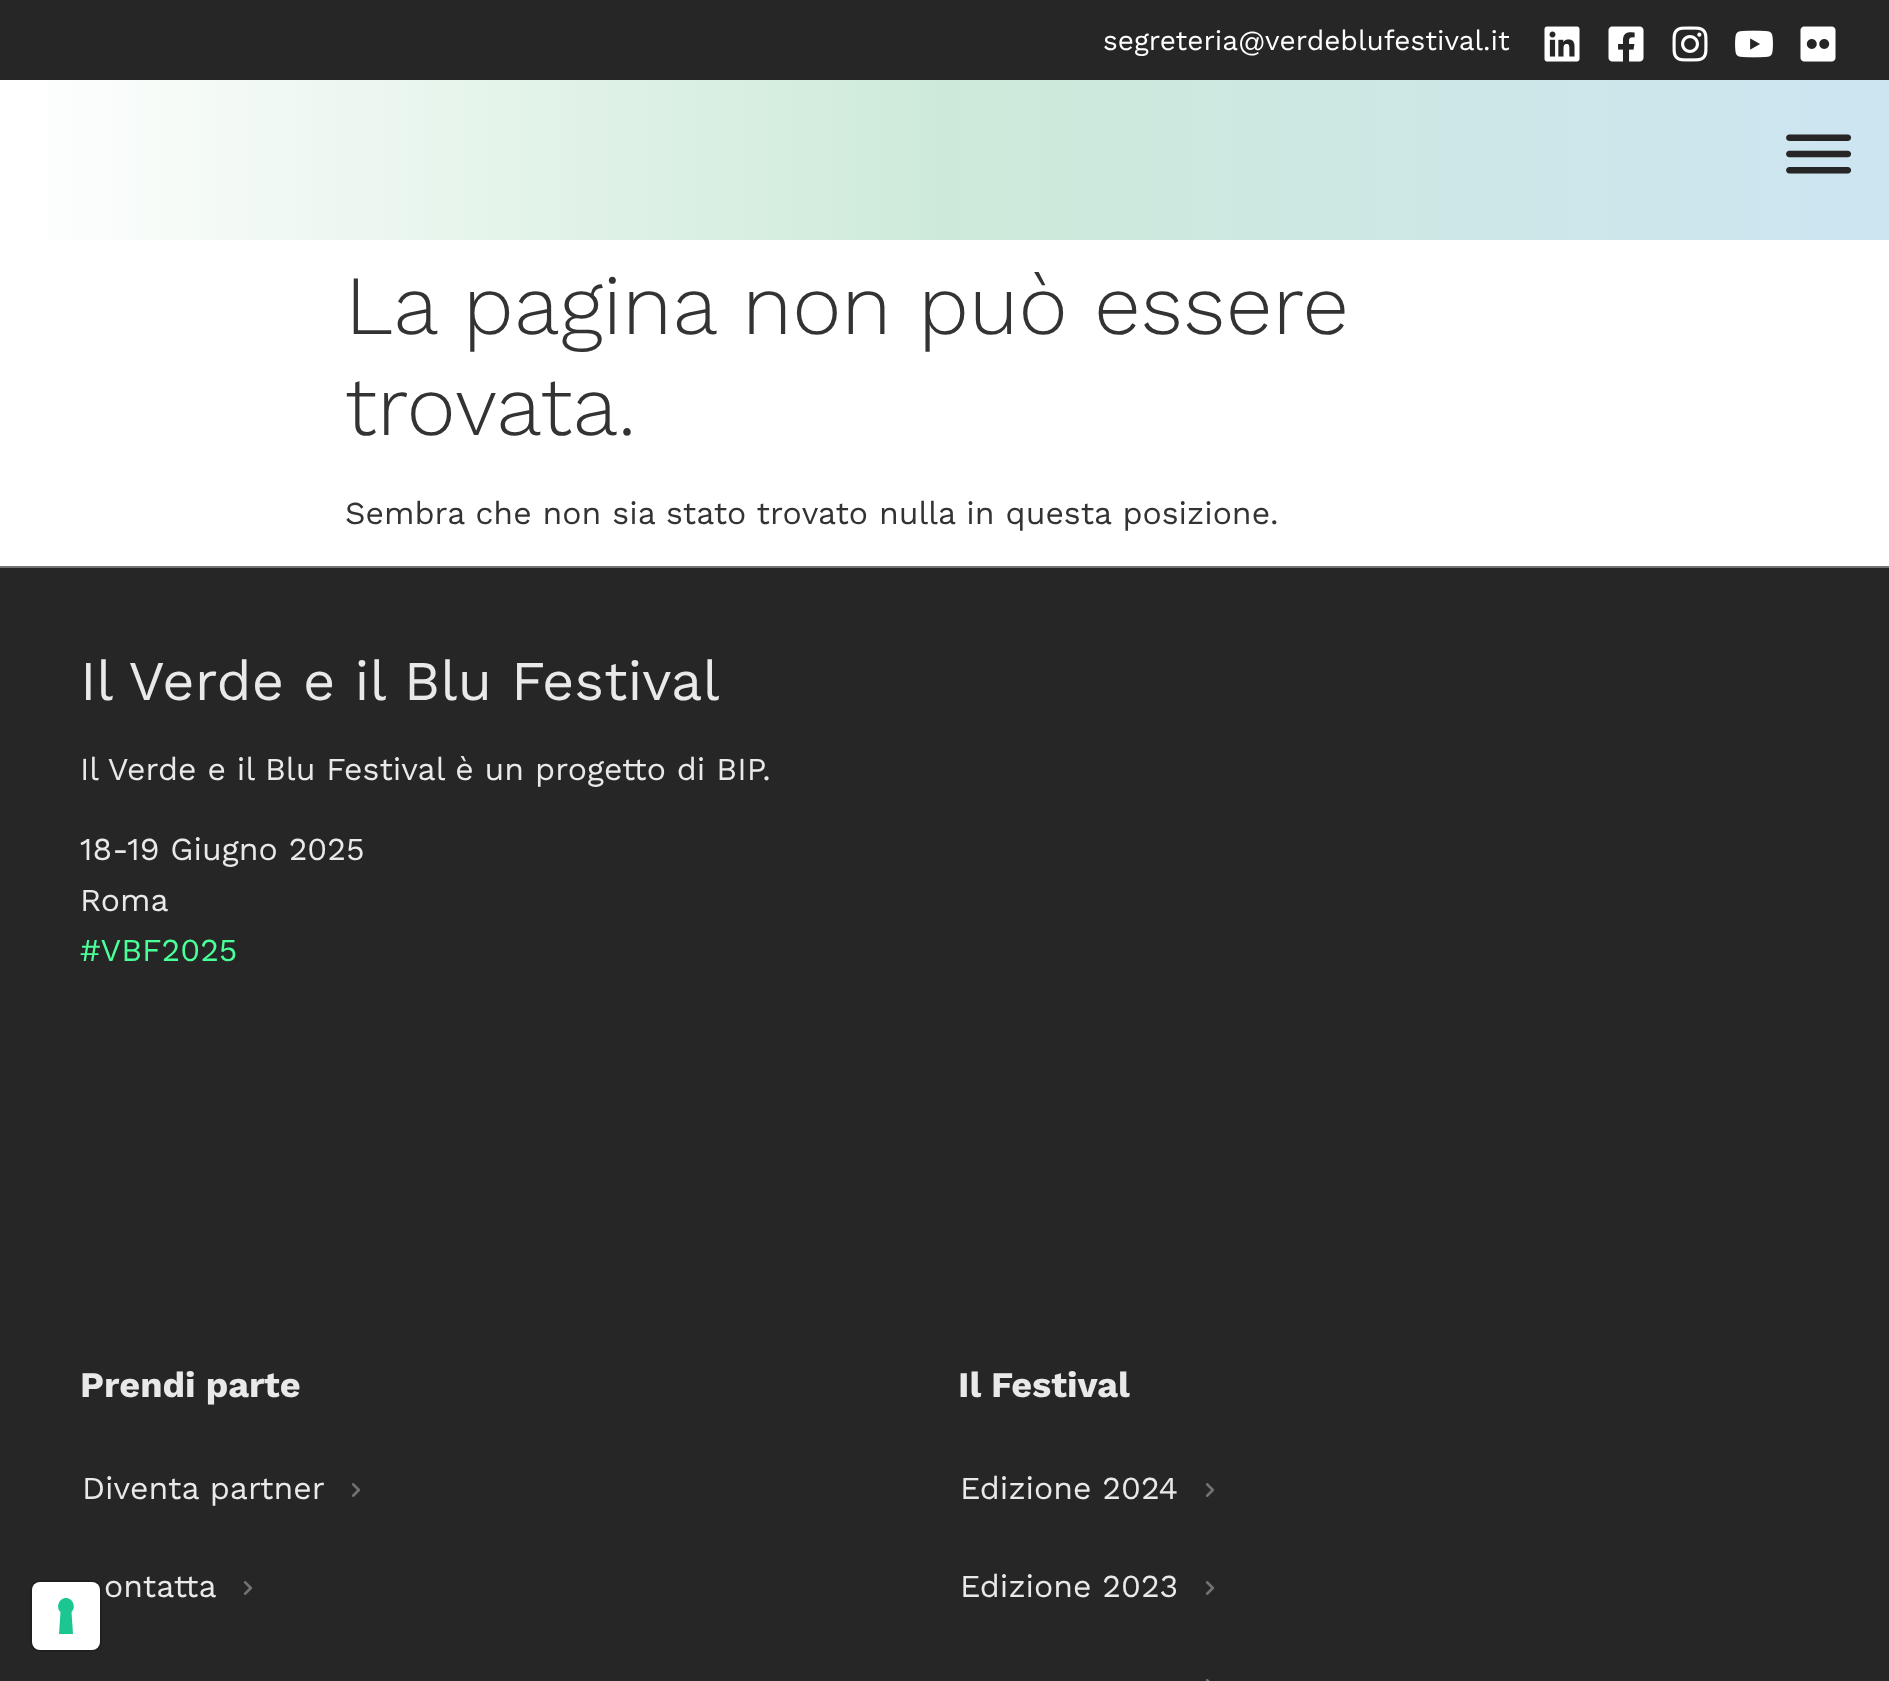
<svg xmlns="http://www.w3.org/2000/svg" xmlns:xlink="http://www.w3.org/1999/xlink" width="1889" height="1681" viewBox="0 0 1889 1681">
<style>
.cls-1{font:28px Work Sans;fill:#ffffff}
.cls-2{font:300 84px Work Sans;fill:#333333}
.cls-3{font:32px Work Sans;fill:#333333}
.cls-4{font:56px Work Sans;fill:#e9e9e9}
.cls-5{font:32px Work Sans;fill:#e9e9e9}
.cls-6{font:32px Work Sans;fill:#49ff98}
.cls-7{font:bold 36px Work Sans;fill:#e9e9e9}
</style>
<defs>
<linearGradient id="g1" gradientUnits="userSpaceOnUse" x1="0" y1="160" x2="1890" y2="160"><stop offset="0" stop-color="#ffffff"/><stop offset="0.5" stop-color="#cdead9"/><stop offset="1" stop-color="#cde5f2"/></linearGradient>
</defs>
<rect width="100%" height="100%" fill="#ffffff"/>
<rect fill="#262626" x="0" y="0" width="1889" height="80"/>
<image xlink:href="image0.png" x="1544" y="26" width="36" height="36"/>
<image xlink:href="image1.png" x="1608" y="26" width="36" height="36"/>
<image xlink:href="image2.png" x="1672" y="26" width="36" height="36"/>
<image xlink:href="image3.png" x="1735" y="30" width="38" height="28"/>
<image xlink:href="image4.png" x="1800" y="26" width="36" height="36"/>
<rect fill="url(#g1)" x="47" y="80" width="1842" height="160"/>
<image xlink:href="image5.png" x="1786" y="134" width="66" height="40"/>
<rect fill="#262626" x="0" y="568" width="1889" height="1113"/>
<rect fill="#727272" x="0" y="566" width="1889" height="2"/>
<image xlink:href="image6.png" x="351" y="1483" width="10" height="14"/>
<image xlink:href="image6.png" x="243" y="1581" width="10" height="14"/>
<image xlink:href="image6.png" x="1205" y="1483" width="10" height="14"/>
<image xlink:href="image6.png" x="1205" y="1581" width="10" height="14"/>
<image xlink:href="image7.png" x="1205" y="1679" width="5" height="2"/>
<rect fill="none" stroke="#000000" stroke-opacity="0.15" stroke-width="2" x="31" y="1581" width="70" height="70" rx="9"/>
<rect fill="#ffffff" x="32" y="1582" width="68" height="68" rx="8"/>
<path fill="#1cc691" fill-rule="evenodd" d="M66 1598C73 1598 76.5 1607.5 71.5 1612L73 1634H59L60.5 1612C55.5 1607.5 59 1598 66 1598Z"/>
<text class="cls-1" x="1103" y="50">segreteria@verdeblufestival.it</text>
<text class="cls-2"><tspan x="345" y="334">La pagina non può essere</tspan><tspan x="345" y="435">trovata.</tspan></text>
<text class="cls-3" x="345" y="524">Sembra che non sia stato trovato nulla in questa posizione.</text>
<text class="cls-4" x="80" y="700">Il Verde e il Blu Festival</text>
<text class="cls-5" x="80" y="780">Il Verde e il Blu Festival è un progetto di BIP.</text>
<text class="cls-5"><tspan x="80" y="860">18-19 Giugno 2025</tspan><tspan x="80" y="911">Roma</tspan></text>
<text class="cls-6" x="80" y="961">#VBF2025</text>
<text class="cls-7" x="80" y="1397">Prendi parte</text>
<text class="cls-5" x="82" y="1499">Diventa partner</text>
<text class="cls-5" x="104" y="1597">ontatta</text>
<text class="cls-7" x="958" y="1397">Il Festival</text>
<text class="cls-5" x="960" y="1499">Edizione 2024</text>
<text class="cls-5" x="960" y="1597">Edizione 2023</text>
</svg>
